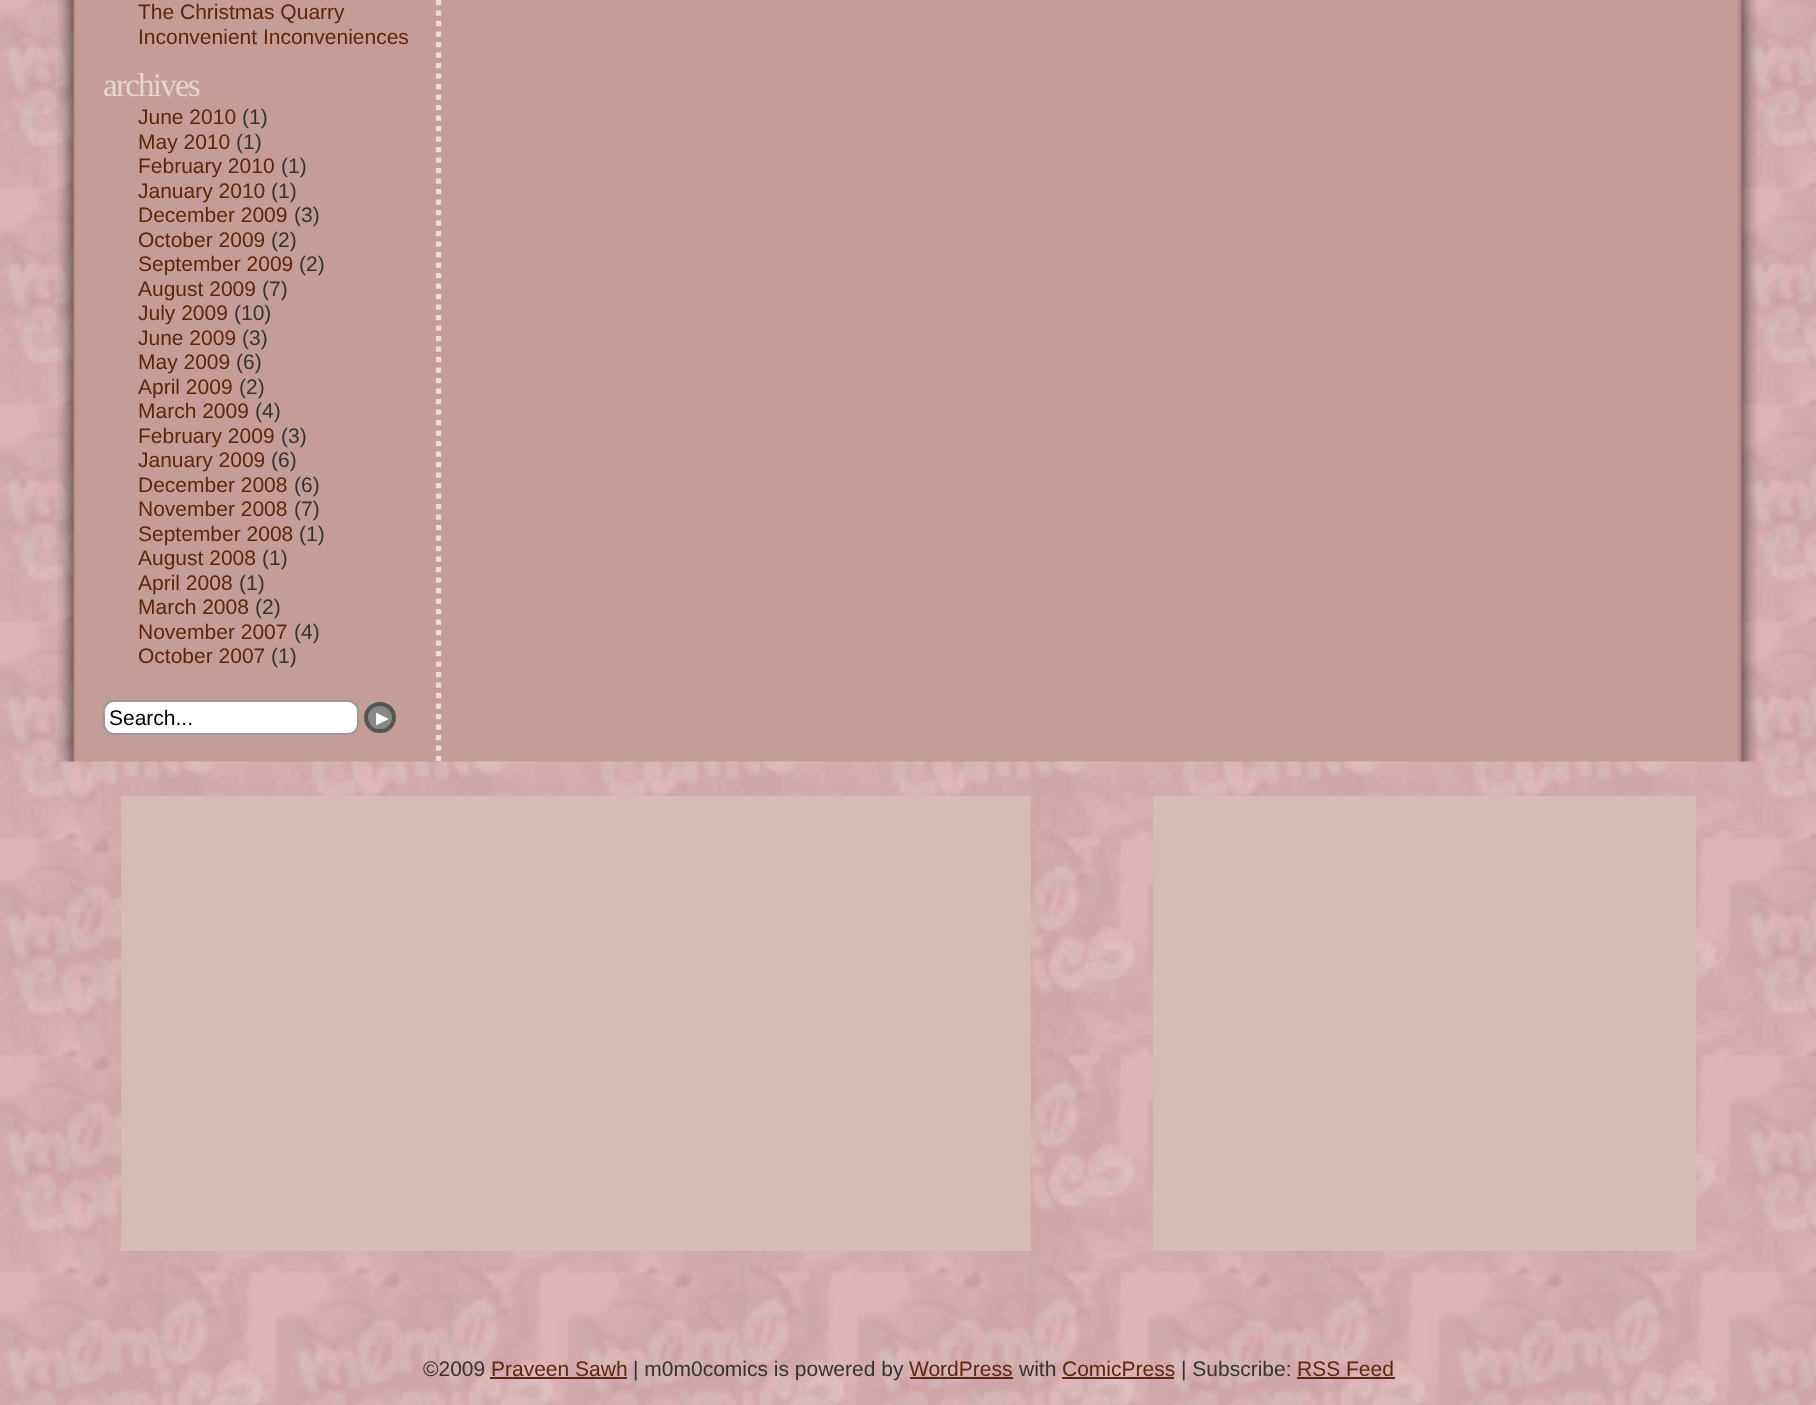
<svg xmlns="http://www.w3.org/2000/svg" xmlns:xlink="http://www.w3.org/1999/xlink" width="1816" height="1405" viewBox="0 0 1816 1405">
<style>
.cls-1{font:21px Liberation Sans;fill:#5b2709}
.cls-2{font:33px Liberation Serif;letter-spacing:-1.75px;fill:#e6d4d2}
.cls-3{font:21px Liberation Sans;fill:#333333}
.cls-4{font:21px Liberation Sans;fill:#000000}
.cls-5{font:21px Liberation Sans;fill:#ffffff}
</style>
<rect width="100%" height="100%" fill="#ffffff"/>
<image xlink:href="image0.png" x="0" y="0" width="1816" height="1405"/>
<image xlink:href="image1.png" x="57" y="0" width="1700" height="762"/>
<path fill="none" stroke="#eddedc" stroke-width="5.2" stroke-dasharray="5.25 5.25" d="M438.5-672V761"/>
<rect fill="#ffffff" stroke="#999999" stroke-width="2" x="104" y="701" width="254" height="33" rx="10"/>
<rect fill="#888888" stroke="#555555" stroke-width="4" x="366" y="704" width="28" height="27" rx="13.5"/>
<rect fill="#d6bbb6" x="121" y="796" width="910" height="455"/>
<rect fill="#d6bbb6" x="1153" y="796" width="543" height="455"/>
<rect fill="#5b2709" x="490" y="1377" width="137" height="2"/>
<rect fill="#5b2709" x="910" y="1377" width="103" height="2"/>
<rect fill="#5b2709" x="1062" y="1377" width="112" height="2"/>
<rect fill="#5b2709" x="1297" y="1377" width="98" height="2"/>
<text class="cls-1"><tspan x="138" y="19">The Christmas Quarry</tspan><tspan x="138" y="44">Inconvenient Inconveniences</tspan></text>
<text class="cls-2" x="103" y="96">archives</text>
<text class="cls-1" x="138" y="124">June 2010</text>
<text class="cls-3" x="242" y="124">(1)</text>
<text class="cls-1" x="138" y="149">May 2010</text>
<text class="cls-3" x="236" y="149">(1)</text>
<text class="cls-1" x="138" y="173">February 2010</text>
<text class="cls-3" x="281" y="173">(1)</text>
<text class="cls-1" x="138" y="198">January 2010</text>
<text class="cls-3" x="271" y="198">(1)</text>
<text class="cls-1" x="138" y="222">December 2009</text>
<text class="cls-3" x="294" y="222">(3)</text>
<text class="cls-1" x="138" y="247">October 2009</text>
<text class="cls-3" x="271" y="247">(2)</text>
<text class="cls-1" x="138" y="271">September 2009</text>
<text class="cls-3" x="299" y="271">(2)</text>
<text class="cls-1" x="138" y="296">August 2009</text>
<text class="cls-3" x="262" y="296">(7)</text>
<text class="cls-1" x="138" y="320">July 2009</text>
<text class="cls-3" x="234" y="320">(10)</text>
<text class="cls-1" x="138" y="345">June 2009</text>
<text class="cls-3" x="242" y="345">(3)</text>
<text class="cls-1" x="138" y="369">May 2009</text>
<text class="cls-3" x="236" y="369">(6)</text>
<text class="cls-1" x="138" y="394">April 2009</text>
<text class="cls-3" x="239" y="394">(2)</text>
<text class="cls-1" x="138" y="418">March 2009</text>
<text class="cls-3" x="255" y="418">(4)</text>
<text class="cls-1" x="138" y="443">February 2009</text>
<text class="cls-3" x="281" y="443">(3)</text>
<text class="cls-1" x="138" y="467">January 2009</text>
<text class="cls-3" x="271" y="467">(6)</text>
<text class="cls-1" x="138" y="492">December 2008</text>
<text class="cls-3" x="294" y="492">(6)</text>
<text class="cls-1" x="138" y="516">November 2008</text>
<text class="cls-3" x="294" y="516">(7)</text>
<text class="cls-1" x="138" y="541">September 2008</text>
<text class="cls-3" x="299" y="541">(1)</text>
<text class="cls-1" x="138" y="565">August 2008</text>
<text class="cls-3" x="262" y="565">(1)</text>
<text class="cls-1" x="138" y="590">April 2008</text>
<text class="cls-3" x="239" y="590">(1)</text>
<text class="cls-1" x="138" y="614">March 2008</text>
<text class="cls-3" x="255" y="614">(2)</text>
<text class="cls-1" x="138" y="639">November 2007</text>
<text class="cls-3" x="294" y="639">(4)</text>
<text class="cls-1" x="138" y="663">October 2007</text>
<text class="cls-3" x="271" y="663">(1)</text>
<text class="cls-4" x="109" y="725">Search...</text>
<text class="cls-5" x="372" y="725">►</text>
<text class="cls-3" x="423" y="1376">©2009</text>
<text class="cls-1" x="491" y="1376">Praveen Sawh</text>
<text class="cls-3" x="633" y="1376">| m0m0comics is powered by</text>
<text class="cls-1" x="909" y="1376">WordPress</text>
<text class="cls-3" x="1019" y="1376">with</text>
<text class="cls-1" x="1062" y="1376">ComicPress</text>
<text class="cls-3" x="1181" y="1376">| Subscribe:</text>
<text class="cls-1" x="1297" y="1376">RSS Feed</text>
</svg>
